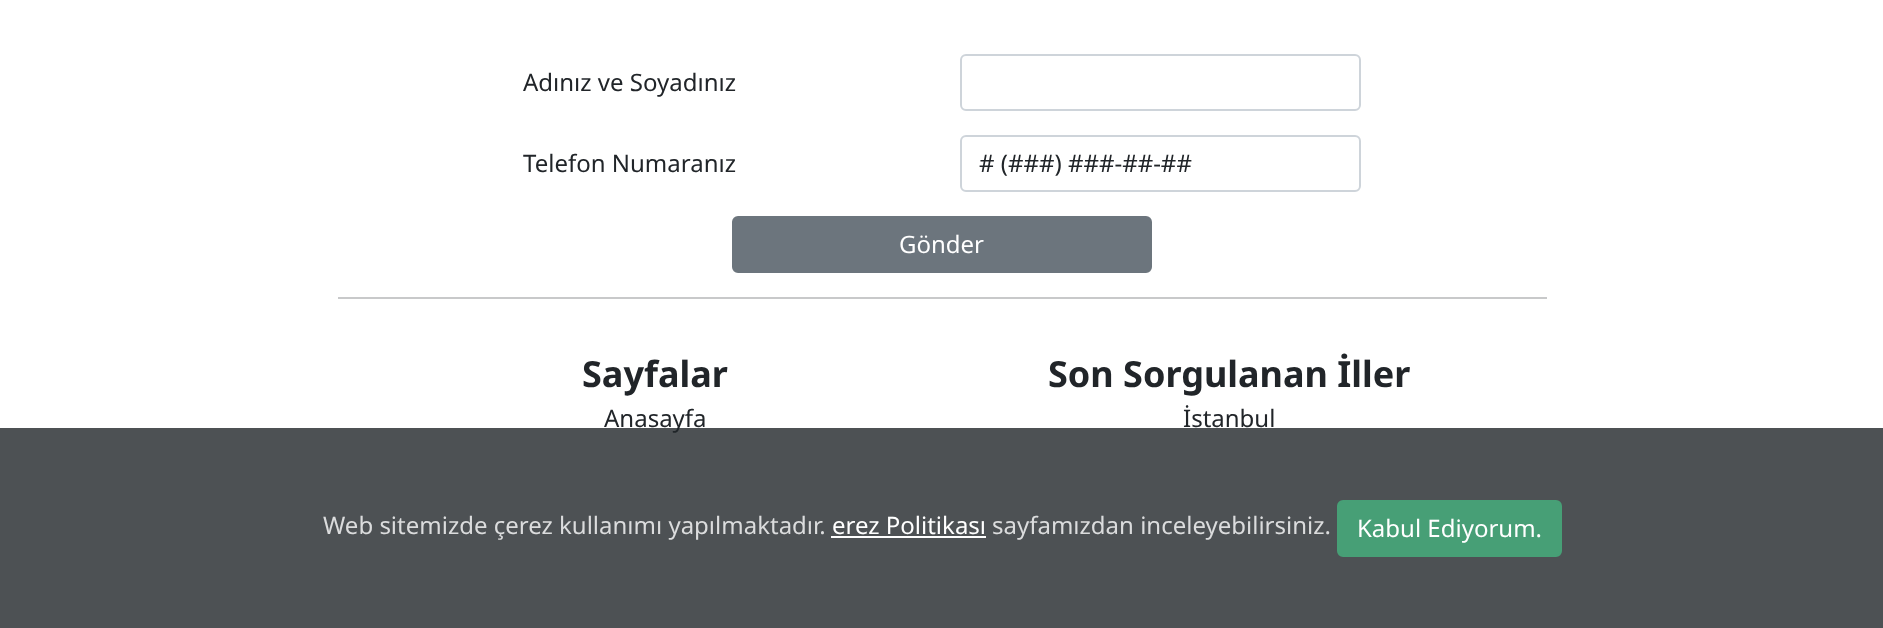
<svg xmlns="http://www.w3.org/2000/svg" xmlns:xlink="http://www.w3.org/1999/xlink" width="1883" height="628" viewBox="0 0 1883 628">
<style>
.cls-1{font:24px Noto Sans;fill:#212529}
.cls-2{font:24px Noto Sans;fill:#ffffff}
.cls-3{font:bold 36px Noto Sans;fill:#212529}
.cls-4{font:24px Noto Sans;fill:#dbdcdd}
</style>
<rect width="100%" height="100%" fill="#ffffff"/>
<rect fill="none" stroke="#ced4da" stroke-width="2" x="961" y="55" width="399" height="55" rx="5"/>
<rect fill="none" stroke="#ced4da" stroke-width="2" x="961" y="136" width="399" height="55" rx="5"/>
<rect fill="#6c757d" stroke="#6c757d" stroke-width="2" x="733" y="217" width="418" height="55" rx="5"/>
<rect fill="#c8c9ca" x="338" y="297" width="1209" height="2"/>
<text class="cls-1" x="523" y="91">Adınız ve Soyadınız</text>
<text class="cls-1" x="523" y="172">Telefon Numaranız</text>
<text class="cls-1" x="979" y="172"># (###) ###-##-##</text>
<text class="cls-2" x="899" y="253">Gönder</text>
<text class="cls-3" x="582" y="387">Sayfalar</text>
<text class="cls-1" x="604" y="427">Anasayfa</text>
<text class="cls-3" x="1048" y="387">Son Sorgulanan İller</text>
<text class="cls-1" x="1183" y="427">İstanbul</text>
<rect fill="#212529" fill-opacity="0.8" x="0" y="428" width="1883" height="200"/>
<text class="cls-4" x="323" y="534">Web sitemizde çerez kullanımı yapılmaktadır.</text>
<text class="cls-2" x="832" y="534">erez Politikası</text>
<rect fill="#ffffff" x="831" y="536" width="155" height="2"/>
<text class="cls-4" x="992" y="534">sayfamızdan inceleyebilirsiniz.</text>
<rect fill="#479f76" stroke="#479f76" stroke-width="2" x="1338" y="501" width="223" height="55" rx="5"/>
<text class="cls-2" x="1357" y="537">Kabul Ediyorum.</text>
</svg>
